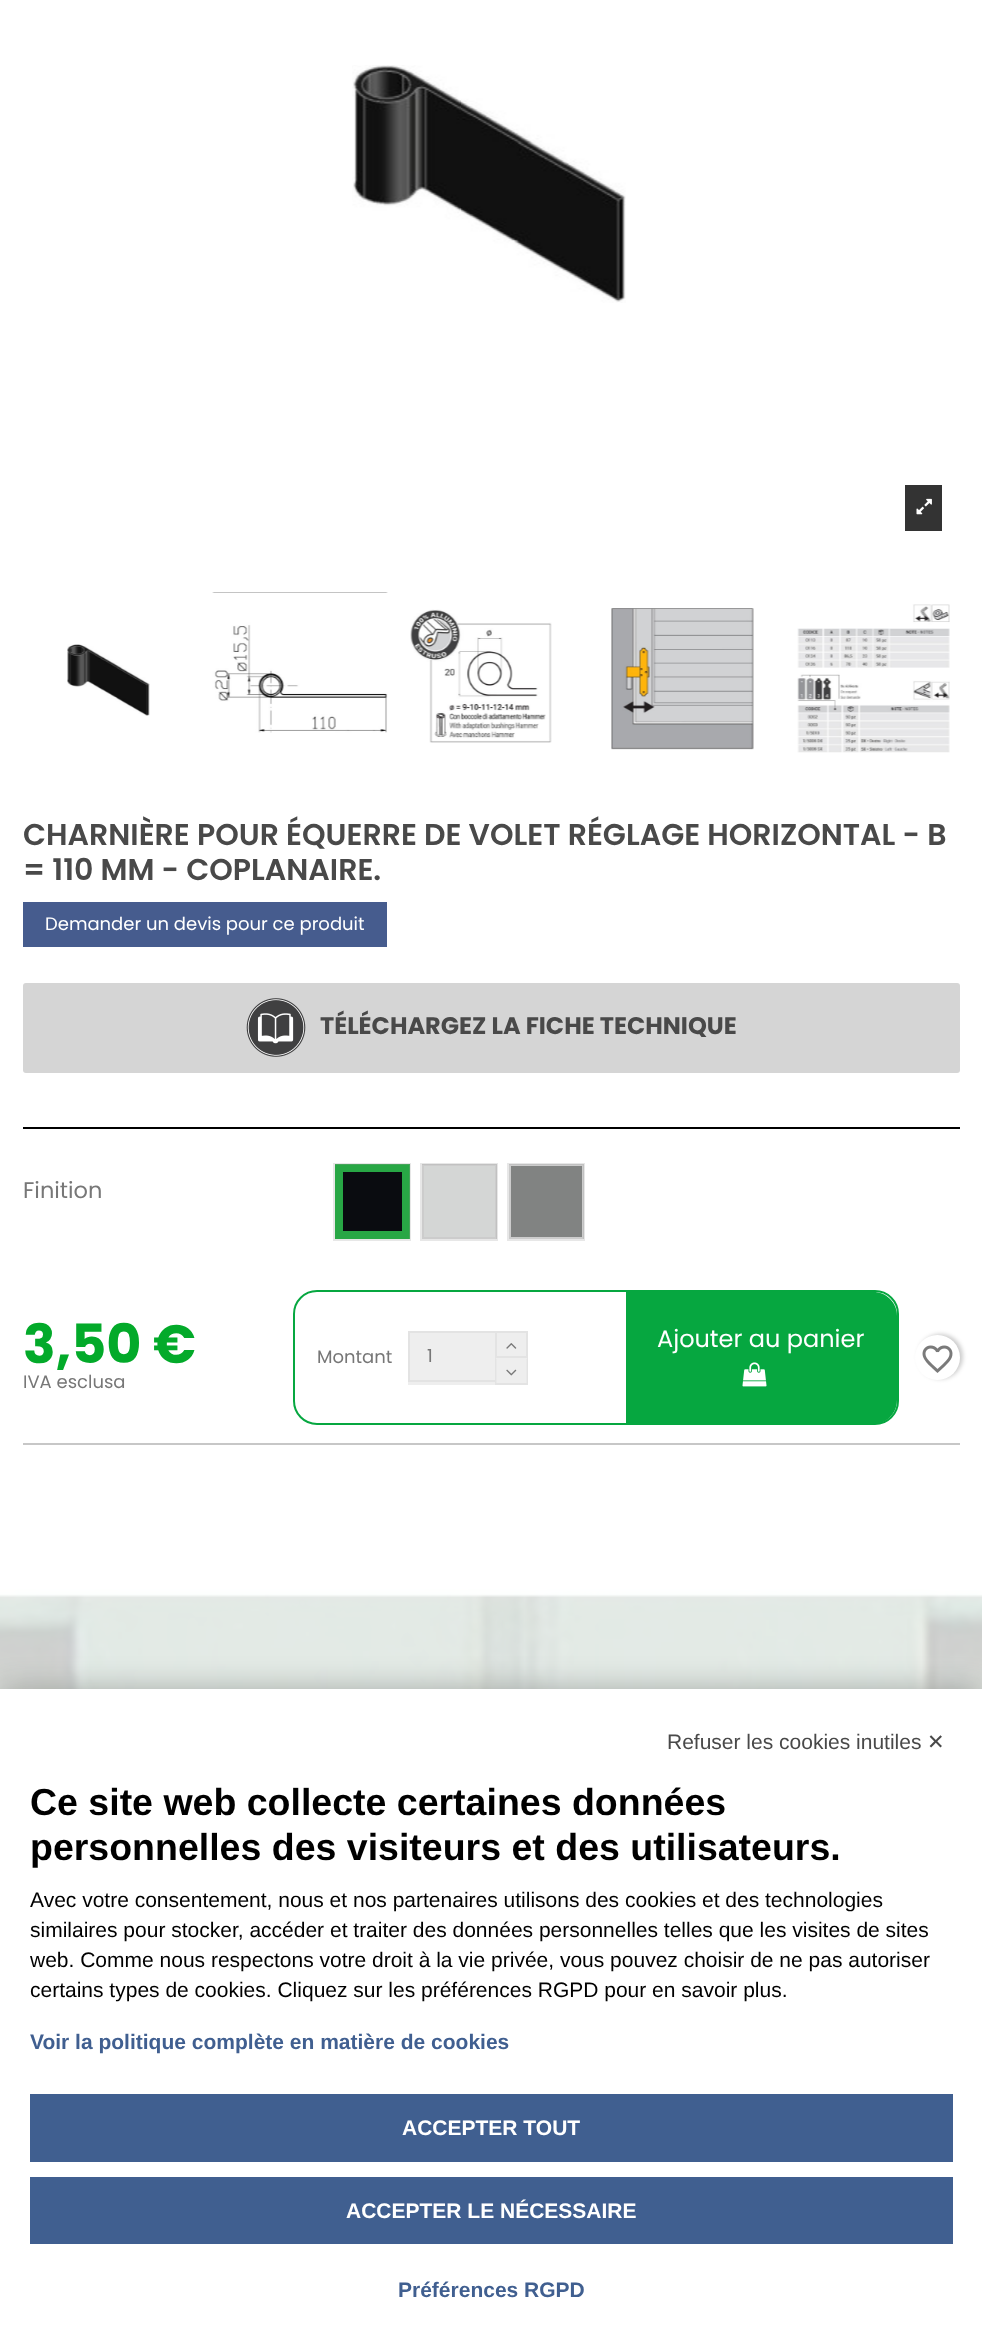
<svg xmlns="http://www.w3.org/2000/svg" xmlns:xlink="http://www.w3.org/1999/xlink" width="982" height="2333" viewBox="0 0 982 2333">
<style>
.cls-1{font:600 30px Poppins;fill:#494949}
.cls-2{font:18px Poppins;fill:#ffffff}
.cls-3{font:bold 24px Poppins;fill:#494949}
.cls-4{font:22.5px Poppins;fill:#777777}
.cls-5{font:bold 54px Poppins;fill:#03aa2a}
.cls-6{font:18px Poppins;fill:#777777}
.cls-7{font:24px Poppins;fill:#ffffff}
.cls-8{font:21px Liberation Sans;fill:#494949}
.cls-9{font:21px DejaVu Sans;fill:#494949}
.cls-10{font:bold 37.5px Liberation Sans;fill:#000000}
.cls-11{font:21px Liberation Sans;fill:#000000}
.cls-12{font:bold 21px Liberation Sans;fill:#405f90}
.cls-13{font:bold 21px Liberation Sans;fill:#ffffff}
</style>
<rect width="100%" height="100%" fill="#ffffff"/>
<image xlink:href="image0.png" x="352" y="65" width="274" height="238"/>
<rect fill="#333333" x="905" y="485" width="37" height="46"/>
<image xlink:href="image1.png" x="916" y="498" width="16" height="17"/>
<image xlink:href="image2.png" x="67" y="644" width="83" height="72"/>
<image xlink:href="image3.png" x="212" y="592" width="176" height="141"/>
<image xlink:href="image4.png" x="410" y="609" width="142" height="134"/>
<image xlink:href="image5.png" x="611" y="608" width="143" height="142"/>
<image xlink:href="image6.png" x="797" y="604" width="153" height="149"/>
<rect fill="#465c8e" x="23" y="902" width="364" height="45"/>
<rect fill="#d5d5d5" x="23" y="983" width="937" height="90" rx="3"/>
<image xlink:href="image7.png" x="246" y="998" width="60" height="59"/>
<rect fill="#c7c7c7" x="23" y="1443" width="937" height="2"/>
<rect fill="#000000" x="23" y="1127" width="937" height="2"/>
<rect fill="#0a0c10" stroke="#28a745" stroke-width="8" x="339" y="1168" width="67" height="67"/>
<rect fill="none" stroke="#a0a0a0" stroke-opacity="0.25" stroke-width="2" x="334" y="1164" width="76" height="76"/>
<rect fill="#d4d6d5" stroke="#cccccc" stroke-width="2" x="423" y="1165" width="73" height="73"/>
<rect fill="none" stroke="#a0a0a0" stroke-opacity="0.25" stroke-width="2" x="421" y="1164" width="76" height="76"/>
<rect fill="#818382" stroke="#cccccc" stroke-width="2" x="510" y="1165" width="73" height="73"/>
<rect fill="none" stroke="#a0a0a0" stroke-opacity="0.25" stroke-width="2" x="508" y="1164" width="76" height="76"/>
<rect fill="none" stroke="#06a740" stroke-width="2" x="294" y="1291" width="604" height="133" rx="23"/>
<path fill="#06a740" d="M626 1292H873C886.5 1292 897 1302.5 897 1316V1400C897 1413.5 886.5 1424 873 1424H626Z"/>
<image xlink:href="image8.png" x="742" y="1362" width="25" height="25"/>
<rect fill="#eeeeee" x="408" y="1333" width="87" height="52"/>
<rect fill="none" stroke="#e3e3e3" stroke-width="2" x="409" y="1332" width="87" height="49"/>
<rect fill="#eeeeee" stroke="#e3e3e3" stroke-width="2" x="496" y="1332" width="31" height="25"/>
<image xlink:href="image9.png" x="506" y="1343" width="11" height="6"/>
<rect fill="#eeeeee" x="495" y="1358" width="33" height="25"/>
<path fill="#e3e3e3" d="M528 1357.5V1384.5L526.5 1383V1359Z"/>
<rect fill="#e3e3e3" x="495" y="1383" width="33" height="2"/>
<path fill="#e3e3e3" d="M495 1384.5V1357.5L496.5 1359V1383Z"/>
<image xlink:href="image10.png" x="506" y="1369" width="11" height="7"/>
<rect fill="#000000" fill-opacity="0.2" filter="blur(2px)" x="918" y="1334" width="45" height="45" rx="22.5"/>
<circle fill="#ffffff" cx="937.5" cy="1357.5" r="22.5"/>
<image xlink:href="image11.png" x="922" y="1345" width="31" height="28"/>
<image xlink:href="image12.png" x="0" y="1589" width="982" height="100"/>
<rect fill="#000000" fill-opacity="0.27" filter="blur(15px)" x="0" y="1689" width="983" height="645"/>
<rect fill="#ffffff" x="0" y="1689" width="982" height="644"/>
<rect fill="#405f90" x="30" y="2094" width="923" height="68"/>
<rect fill="#405f90" x="30" y="2177" width="923" height="67"/>
<text class="cls-1"><tspan x="23" y="845">CHARNIÈRE POUR ÉQUERRE DE VOLET RÉGLAGE HORIZONTAL - B</tspan><tspan x="23" y="880">= 110 MM - COPLANAIRE.</tspan></text>
<text class="cls-2" x="45" y="930">Demander un devis pour ce produit</text>
<text class="cls-3" x="320" y="1034">TÉLÉCHARGEZ LA FICHE TECHNIQUE</text>
<text class="cls-4" x="23" y="1198">Finition</text>
<text class="cls-5" x="23" y="1363">3,50 €</text>
<text class="cls-6" x="23" y="1388">IVA esclusa</text>
<text class="cls-7" x="657" y="1347">Ajouter au panier</text>
<text class="cls-6" x="317" y="1363">Montant</text>
<text class="cls-6" x="427" y="1362">1</text>
<text class="cls-8" x="667" y="1749">Refuser les cookies inutiles</text>
<text class="cls-9" x="927" y="1749">✕</text>
<text class="cls-10"><tspan x="30" y="1815">Ce site web collecte certaines données</tspan><tspan x="30" y="1860">personnelles des visiteurs et des utilisateurs.</tspan></text>
<text class="cls-11"><tspan x="30" y="1907">Avec votre consentement, nous et nos partenaires utilisons des cookies et des technologies</tspan><tspan x="30" y="1937">similaires pour stocker, accéder et traiter des données personnelles telles que les visites de sites</tspan><tspan x="30" y="1967">web. Comme nous respectons votre droit à la vie privée, vous pouvez choisir de ne pas autoriser</tspan><tspan x="30" y="1997">certains types de cookies. Cliquez sur les préférences RGPD pour en savoir plus.</tspan></text>
<text class="cls-12" x="30" y="2049">Voir la politique complète en matière de cookies</text>
<text class="cls-13" x="402" y="2135">ACCEPTER TOUT</text>
<text class="cls-13" x="346" y="2218">ACCEPTER LE NÉCESSAIRE</text>
<text class="cls-12" x="398" y="2297">Préférences RGPD</text>
</svg>
